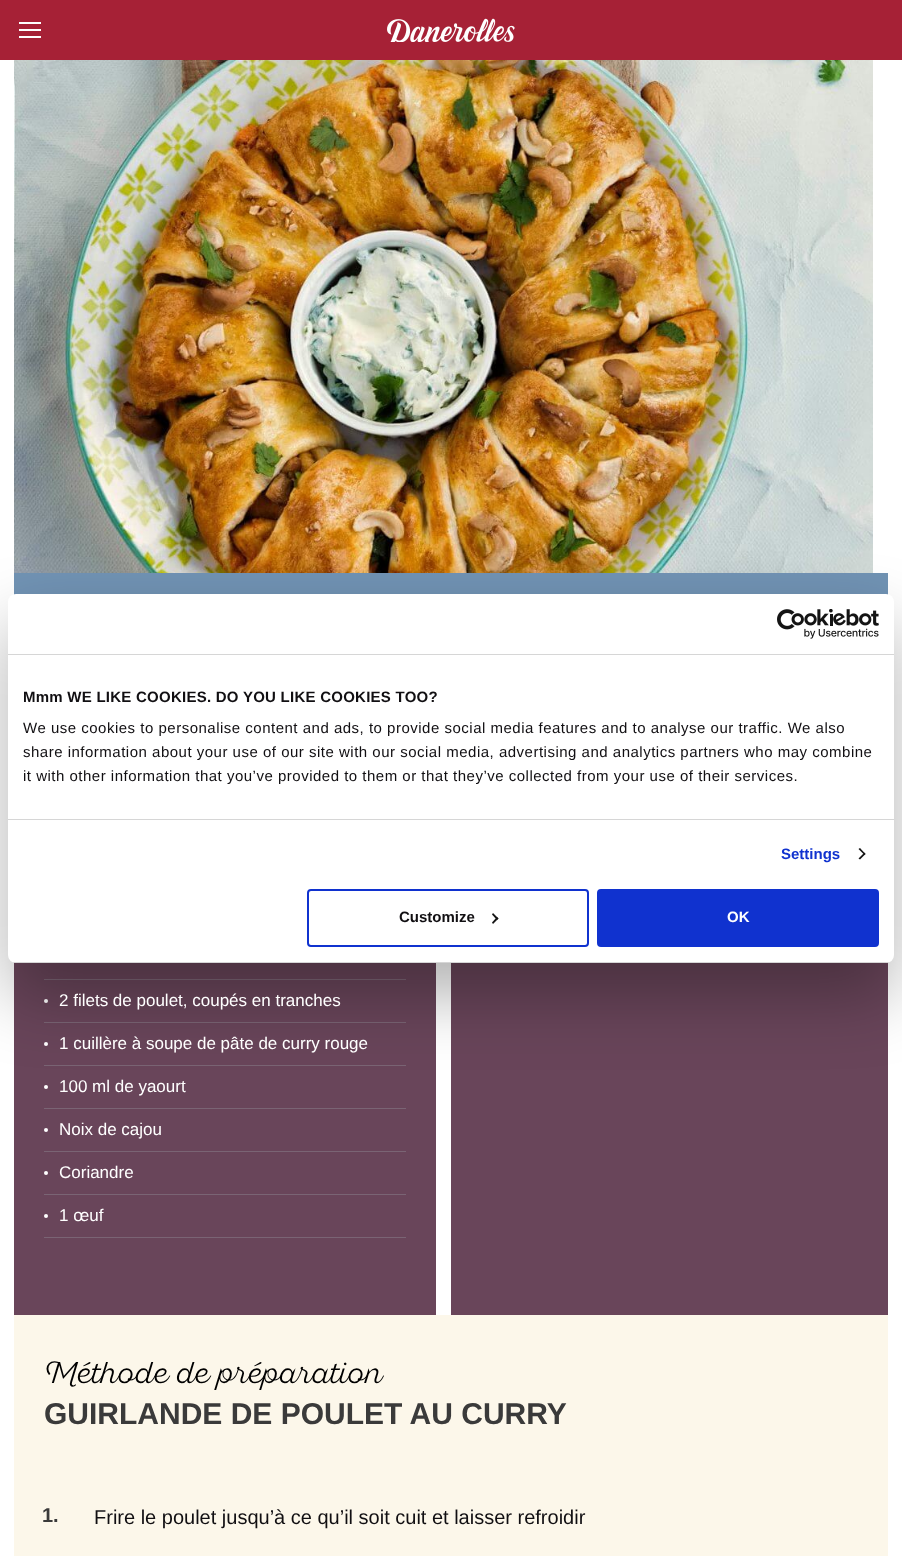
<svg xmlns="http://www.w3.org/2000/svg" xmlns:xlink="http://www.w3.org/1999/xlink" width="902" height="1556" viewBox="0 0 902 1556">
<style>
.cls-1{font:bold 15px Liberation Sans;letter-spacing:0.25px;fill:#110f12}
.cls-2{font:15px Liberation Sans;letter-spacing:0.5px;fill:#110f12}
.cls-3{font:bold 15px Liberation Sans;fill:#1032cf}
.cls-4{font:bold 15px Liberation Sans;fill:#110f12}
.cls-5{font:bold 15px Liberation Sans;fill:#ffffff}
.cls-6{font:17px Liberation Sans;fill:#ffffff}
.cls-7{font:300 30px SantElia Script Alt;fill:#000000}
.cls-8{font:bold 30px Liberation Sans;fill:#3a3a3a}
.cls-9{font:bold 20px Liberation Sans;fill:#3a3a3a}
.cls-10{font:20px Liberation Sans;fill:#110f12}
</style>
<defs>
<clipPath id="clip1"><rect x="8" y="594" width="886" height="369" rx="8"/></clipPath>
</defs>
<rect width="100%" height="100%" fill="#ffffff"/>
<rect fill="#a62136" x="0" y="0" width="902" height="60"/>
<rect fill="#ffffff" x="19" y="22" width="22" height="2"/>
<rect fill="#ffffff" x="19" y="29" width="22" height="2"/>
<rect fill="#ffffff" x="19" y="36" width="22" height="2"/>
<image xlink:href="image0.png" x="387" y="18" width="128" height="24"/>
<image xlink:href="image2.png" x="14" y="60" width="859" height="513"/>
<rect fill="#7193b4" x="14" y="573" width="874" height="22"/>
<rect fill="#69455a" x="14" y="962" width="874" height="353"/>
<rect fill="#ffffff" x="436" y="963" width="15" height="352"/>
<rect fill="#7a6474" x="44" y="979" width="362" height="1"/>
<rect fill="#7a6474" x="44" y="1022" width="362" height="1"/>
<circle fill="#ffffff" cx="46" cy="1001" r="2"/>
<rect fill="#7a6474" x="44" y="1065" width="362" height="1"/>
<circle fill="#ffffff" cx="46" cy="1044" r="2"/>
<circle fill="#ffffff" cx="46" cy="1087" r="2"/>
<rect fill="#000000" fill-opacity="0.3" filter="blur(34px)" x="8" y="626" width="886" height="369" rx="8"/>
<rect fill="#ffffff" x="8" y="594" width="886" height="369" rx="8"/>
<rect fill="#d6d6d6" x="8" y="654" width="886" height="1"/>
<image xlink:href="image1.png" x="777" y="609" width="102" height="30"/>
<rect fill="#d6d6d6" x="8" y="819" width="886" height="1"/>
<path fill="#141414" d="M860 848L865.5 854L864.5 855L858.5 849Z"/>
<path fill="#141414" d="M864.5 852.5L865.5 854L860 859.5L858.5 858.5Z"/>
<g clip-path="url(#clip1)">
<rect fill="#d6d6d6" x="8" y="962" width="886" height="1"/>
</g>
<rect fill="none" stroke="#1032cf" stroke-width="2" x="308" y="890" width="280" height="56" rx="3"/>
<path fill="#141414" d="M493 913L498.5 918.5L497 920L492 914.5Z"/>
<path fill="#141414" d="M497 917L498.5 918.5L493 924L492 922.5Z"/>
<rect fill="#1032cf" stroke="#1032cf" stroke-width="2" x="598" y="890" width="280" height="56" rx="3"/>
<rect fill="#7a6474" x="44" y="1108" width="362" height="1"/>
<rect fill="#7a6474" x="44" y="1151" width="362" height="1"/>
<circle fill="#ffffff" cx="46" cy="1130" r="2"/>
<rect fill="#7a6474" x="44" y="1194" width="362" height="1"/>
<circle fill="#ffffff" cx="46" cy="1173" r="2"/>
<rect fill="#7a6474" x="44" y="1237" width="362" height="1"/>
<circle fill="#ffffff" cx="46" cy="1216" r="2"/>
<rect fill="#fcf7ea" x="14" y="1315" width="874" height="241"/>
<text class="cls-1" x="23" y="702">Mmm WE LIKE COOKIES. DO YOU LIKE COOKIES TOO?</text>
<text class="cls-2"><tspan x="23" y="733">We use cookies to personalise content and ads, to provide social media features and to analyse our traffic. We also</tspan><tspan x="23" y="757">share information about your use of our site with our social media, advertising and analytics partners who may combine</tspan><tspan x="23" y="781">it with other information that you’ve provided to them or that they’ve collected from your use of their services.</tspan></text>
<text class="cls-3" x="781" y="859">Settings</text>
<text class="cls-4" x="399" y="922">Customize</text>
<text class="cls-5" x="727" y="922">OK</text>
<text class="cls-6" x="59" y="1006">2 filets de poulet, coupés en tranches</text>
<text class="cls-6" x="59" y="1049">1 cuillère à soupe de pâte de curry rouge</text>
<text class="cls-6" x="59" y="1092">100 ml de yaourt</text>
<text class="cls-6" x="59" y="1135">Noix de cajou</text>
<text class="cls-6" x="59" y="1178">Coriandre</text>
<text class="cls-6" x="59" y="1221">1 œuf</text>
<text class="cls-7" x="44" y="1383">Méthode de préparation</text>
<text class="cls-8" x="44" y="1424">GUIRLANDE DE POULET AU CURRY</text>
<text class="cls-9" x="42" y="1522">1.</text>
<text class="cls-10" x="94" y="1524">Frire le poulet jusqu’à ce qu’il soit cuit et laisser refroidir</text>
</svg>
